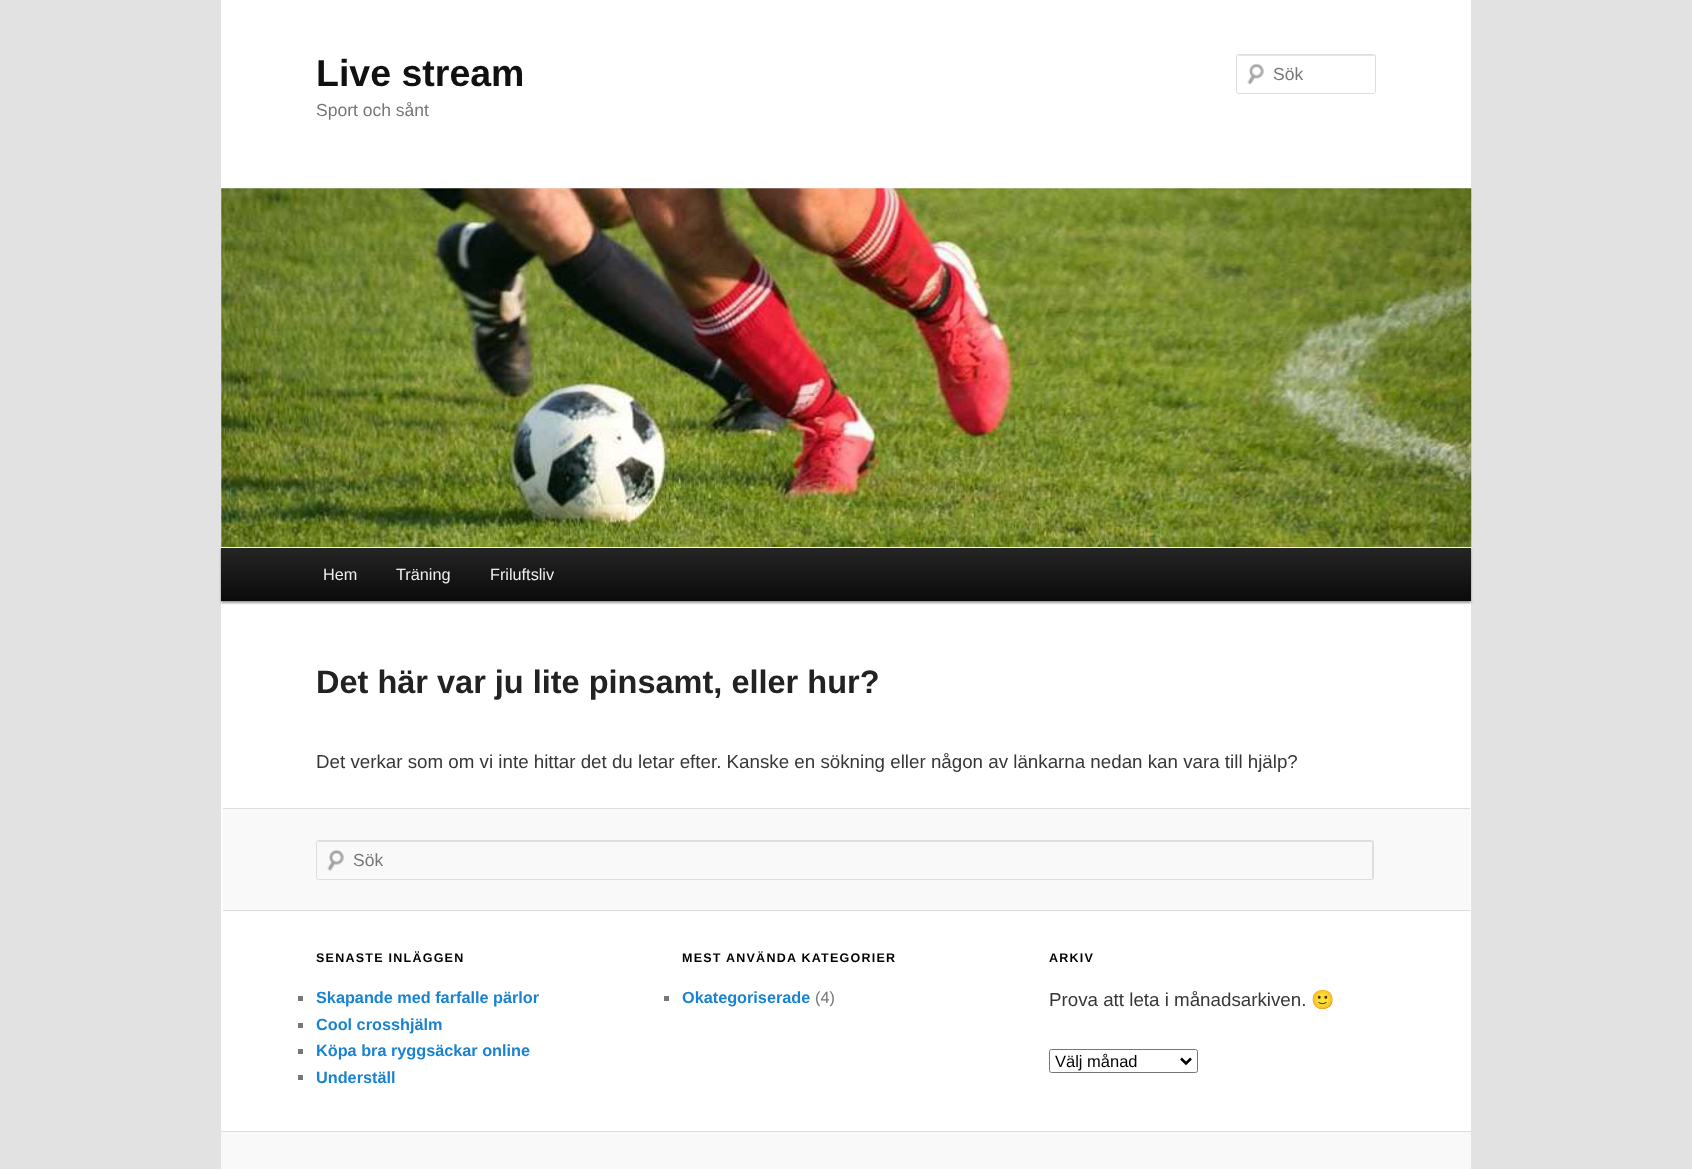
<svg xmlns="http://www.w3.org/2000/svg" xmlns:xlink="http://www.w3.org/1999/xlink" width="1692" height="1169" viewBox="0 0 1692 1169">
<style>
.cls-1{font:bold 37.5px Liberation Sans;fill:#111111}
.cls-2{font:17.5px Liberation Sans;fill:#777777}
.cls-3{font:16.25px Liberation Sans;fill:#eeeeee}
.cls-4{font:bold 32.5px Liberation Sans;fill:#222222}
.cls-5{font:18.75px Liberation Sans;fill:#373737}
.cls-6{font:bold 12.5px Liberation Sans;letter-spacing:1.25px;fill:#000000}
.cls-7{font:bold 16.25px Liberation Sans;fill:#1982d1}
.cls-8{font:16.25px Liberation Sans;fill:#777777}
.cls-9{font:18.75px Noto Color Emoji;fill:#373737}
.cls-10{font:16.5px Liberation Sans;fill:#000000}
</style>
<defs>
<linearGradient id="g1" gradientUnits="userSpaceOnUse" x1="846" y1="547" x2="846" y2="601"><stop offset="0" stop-color="#252525"/><stop offset="1" stop-color="#0a0a0a"/></linearGradient>
</defs>
<rect width="100%" height="100%" fill="#e2e2e2"/>
<rect fill="#ffffff" x="221" y="0" width="1250" height="1131"/>
<image xlink:href="image0.png" x="1247" y="63" width="17" height="22"/>
<path fill="#e6e6e6" d="M1239 56H1374L1375 58C1375 57 1375 56 1374 55H1239C1238 55 1238 57 1238 58C1238 57 1238 56 1239 56Z"/>
<rect fill="none" stroke="#dddddd" x="1236.5" y="54.5" width="139" height="39" rx="2"/>
<rect fill="#000000" fill-opacity="0.4" filter="blur(1px)" x="221" y="549" width="1250" height="54"/>
<image xlink:href="image1.png" x="221" y="188" width="1251" height="359"/>
<rect fill="url(#g1)" x="221" y="548" width="1250" height="53"/>
<rect fill="#f9f9f9" x="223" y="809" width="1247" height="101"/>
<rect fill="#dddddd" x="223" y="808" width="1247" height="1"/>
<rect fill="#dddddd" x="223" y="910" width="1247" height="1"/>
<image xlink:href="image2.png" x="327" y="849" width="17" height="22"/>
<path fill="#e0e0e0" d="M319 842H1371C1372 842 1372 843 1372 844V879H1373V842L1372 841H319L318 842V844C318 843 318 842 319 842Z"/>
<rect fill="none" stroke="#dddddd" x="316.5" y="840.5" width="1057" height="39" rx="2"/>
<rect fill="#777777" x="298" y="996" width="5" height="5"/>
<rect fill="#777777" x="298" y="1023" width="5" height="5"/>
<rect fill="#777777" x="298" y="1049" width="5" height="5"/>
<rect fill="#777777" x="298" y="1075" width="5" height="5"/>
<rect fill="#777777" x="664" y="996" width="5" height="5"/>
<rect fill="none" stroke="#767676" x="1049.5" y="1049.5" width="148" height="23" rx="2"/>
<path fill="none" stroke="#000000" stroke-width="2.5" d="M1181 1058.5L1186 1063.5L1191 1058.5"/>
<rect fill="#f9f9f9" x="221" y="1132" width="1250" height="37"/>
<rect fill="#dddddd" x="221" y="1131" width="1250" height="1"/>
<text class="cls-1" x="316" y="86">Live stream</text>
<text class="cls-2" x="316" y="116">Sport och sånt</text>
<text class="cls-2" x="1273" y="80">Sök</text>
<text class="cls-3" x="323" y="580">Hem</text>
<text class="cls-3" x="396" y="580">Träning</text>
<text class="cls-3" x="490" y="580">Friluftsliv</text>
<text class="cls-4" x="316" y="693">Det här var ju lite pinsamt, eller hur?</text>
<text class="cls-5" x="316" y="768">Det verkar som om vi inte hittar det du letar efter. Kanske en sökning eller någon av länkarna nedan kan vara till hjälp?</text>
<text class="cls-2" x="353" y="866">Sök</text>
<text class="cls-6" x="316" y="962">SENASTE INLÄGGEN</text>
<text class="cls-7"><tspan x="316" y="1003">Skapande med farfalle pärlor</tspan><tspan x="316" y="1030">Cool crosshjälm</tspan><tspan x="316" y="1056">Köpa bra ryggsäckar online</tspan><tspan x="316" y="1083">Underställ</tspan></text>
<text class="cls-6" x="682" y="962">MEST ANVÄNDA KATEGORIER</text>
<text class="cls-7" x="682" y="1003">Okategoriserade</text>
<text class="cls-8" x="815" y="1003">(4)</text>
<text class="cls-6" x="1049" y="962">ARKIV</text>
<text class="cls-5" x="1049" y="1006">Prova att leta i månadsarkiven.</text>
<text class="cls-9" x="1311" y="1006">🙂</text>
<text class="cls-10" x="1055" y="1067">Välj månad</text>
</svg>
